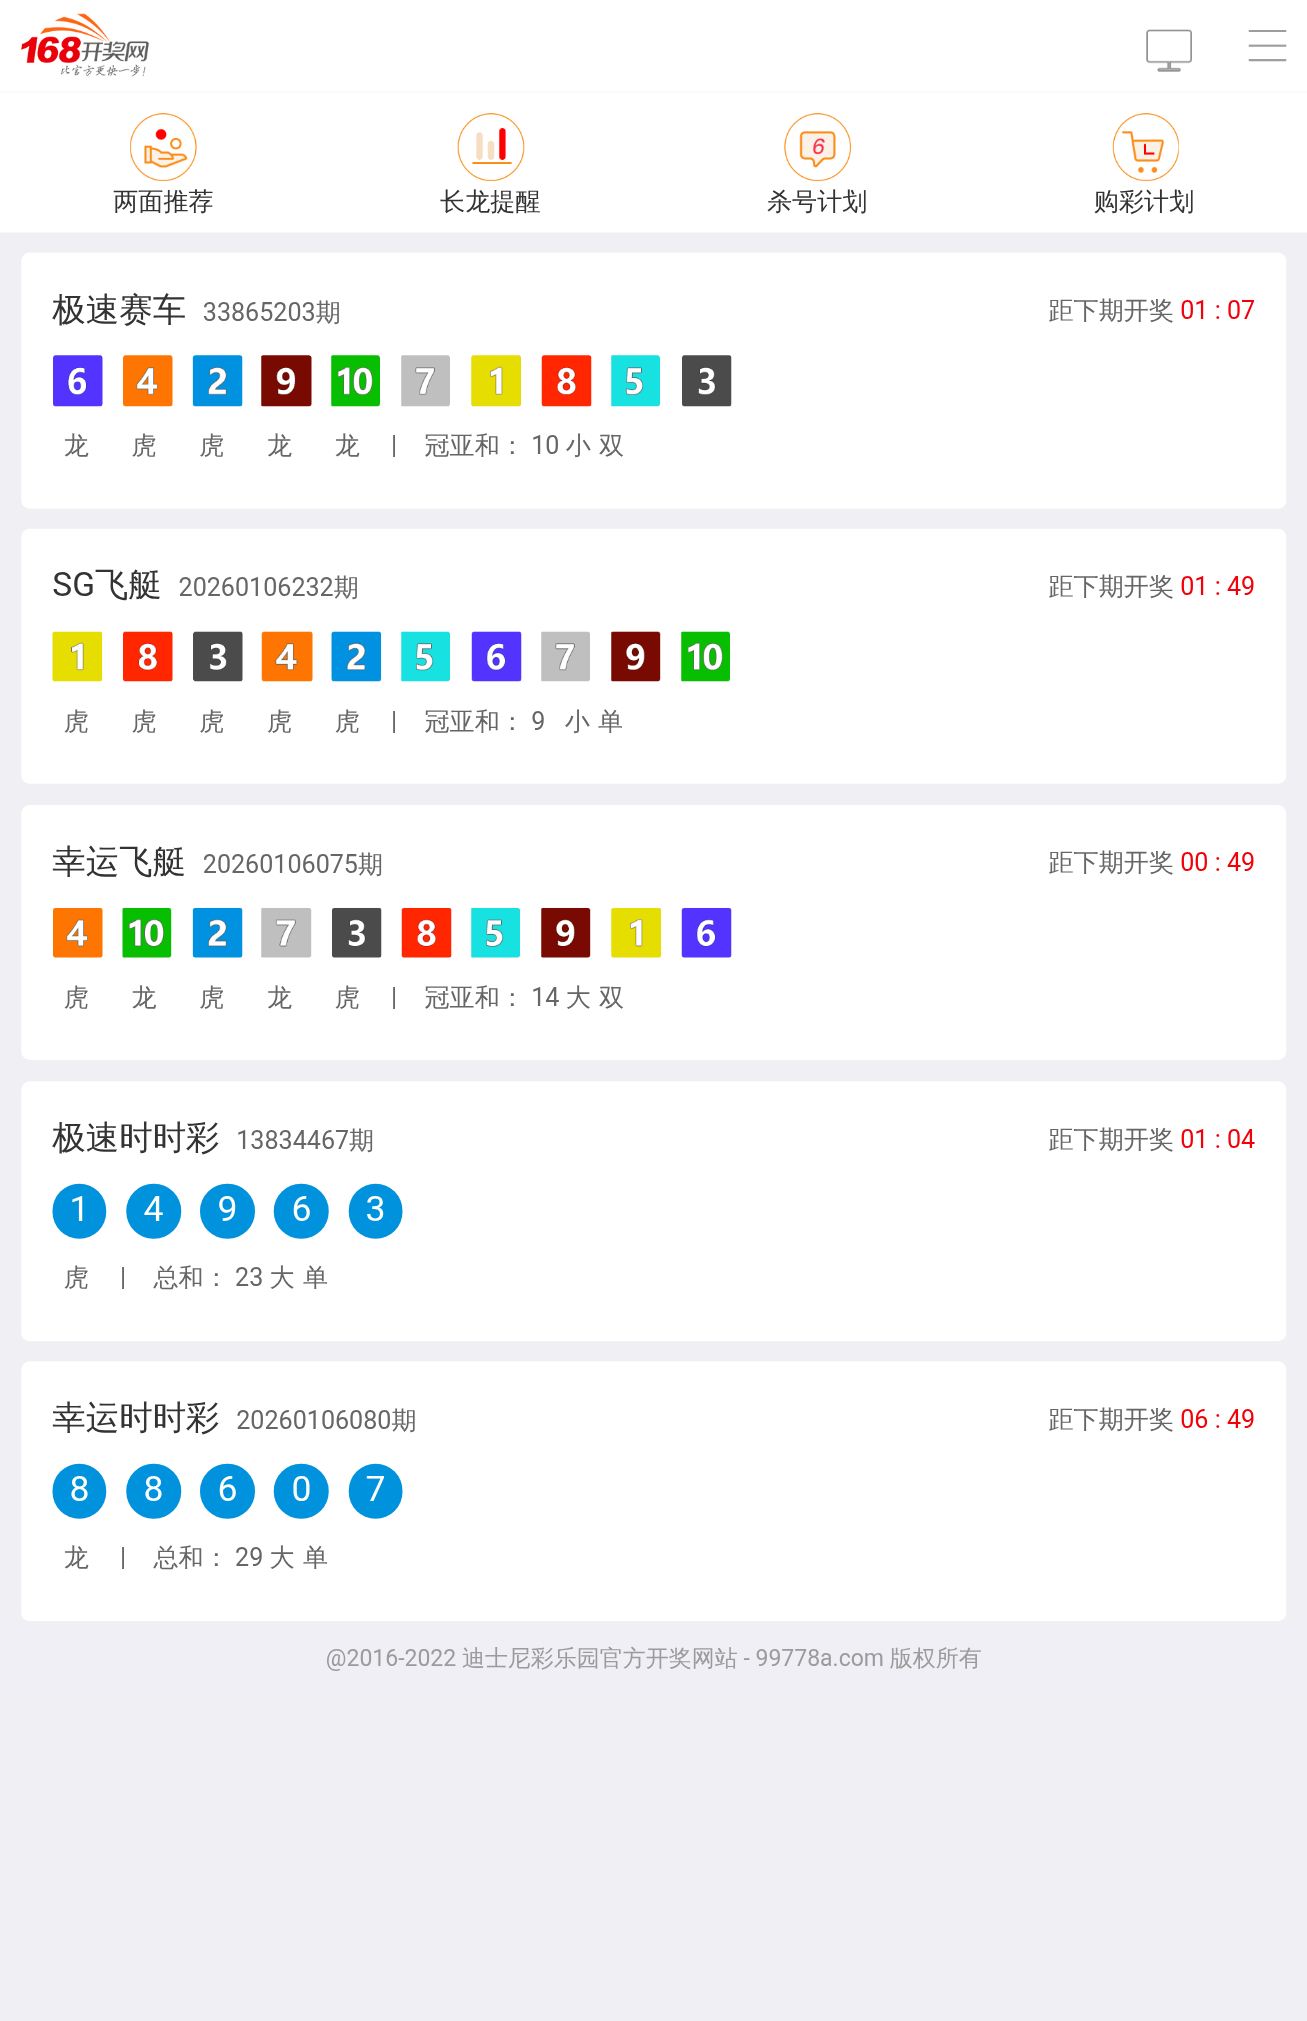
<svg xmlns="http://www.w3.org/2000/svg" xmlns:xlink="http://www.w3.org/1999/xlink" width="1307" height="2021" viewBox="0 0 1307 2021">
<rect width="100%" height="100%" fill="#ffffff"/>
<image xlink:href="image0.png" x="0" y="13" width="1307" height="2008"/>
</svg>
